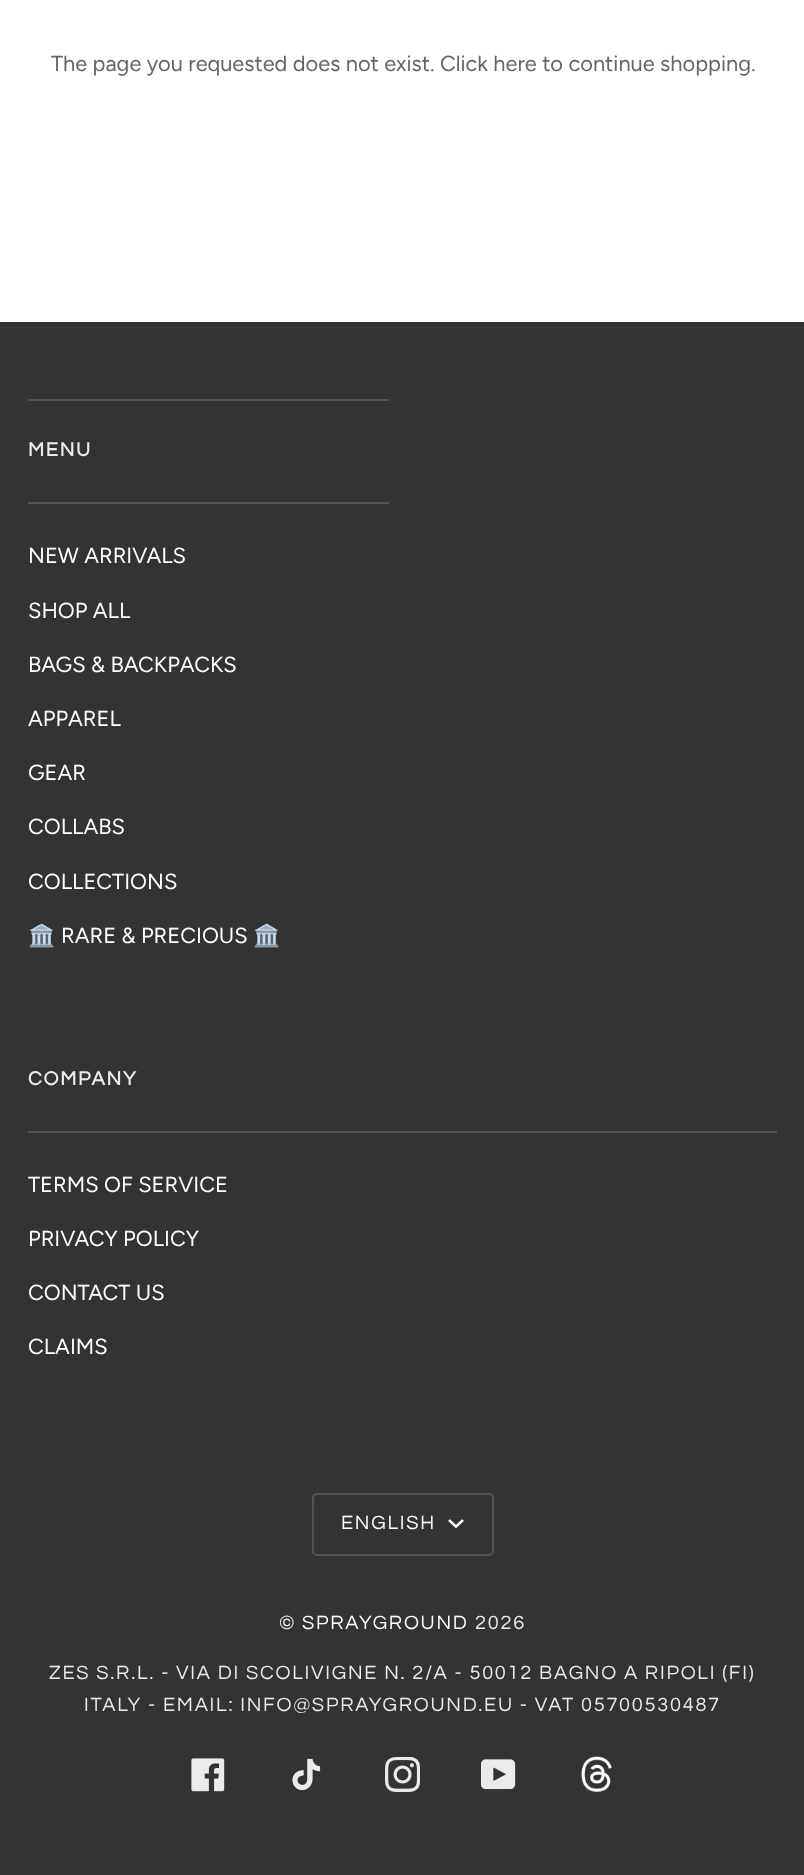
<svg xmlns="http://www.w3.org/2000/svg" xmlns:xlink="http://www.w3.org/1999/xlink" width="804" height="1875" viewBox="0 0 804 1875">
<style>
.cls-1{font:21.85px Figtree;fill:#656565}
.cls-2{font:bold 19.95px Questrial;letter-spacing:1.75px;fill:#ebebeb}
.cls-3{font:21.85px Figtree;fill:#ffffff}
.cls-4{font:21.85px Noto Color Emoji;fill:#ffffff}
.cls-5{font:19.95px Questrial;letter-spacing:1.75px;fill:#ffffff}
.cls-6{font:19.95px Questrial;letter-spacing:1.75px;fill:#ebebeb}
</style>
<rect width="100%" height="100%" fill="#ffffff"/>
<rect fill="#333333" x="0" y="322" width="804" height="1553"/>
<rect fill="#525252" x="28" y="399" width="361" height="2"/>
<rect fill="#525252" x="28" y="502" width="361" height="2"/>
<rect fill="#525252" x="28" y="1131" width="749" height="2"/>
<rect fill="none" stroke="#525252" stroke-width="2" x="313" y="1494" width="180" height="61" rx="4"/>
<image xlink:href="image0.png" x="448" y="1519" width="16" height="10"/>
<image xlink:href="image1.png" x="191" y="1758" width="34" height="34"/>
<image xlink:href="image2.png" x="292" y="1758" width="29" height="33"/>
<image xlink:href="image3.png" x="385" y="1757" width="35" height="35"/>
<image xlink:href="image4.png" x="481" y="1759" width="35" height="31"/>
<image xlink:href="image5.png" x="581" y="1756" width="31" height="36"/>
<text class="cls-1" x="51" y="71">The page you requested does not exist. Click here to continue shopping.</text>
<text class="cls-2" x="28" y="456">MENU</text>
<text class="cls-3" x="28" y="563">NEW ARRIVALS</text>
<text class="cls-3" x="28" y="618">SHOP ALL</text>
<text class="cls-3" x="28" y="672">BAGS &amp; BACKPACKS</text>
<text class="cls-3" x="28" y="726">APPAREL</text>
<text class="cls-3" x="28" y="780">GEAR</text>
<text class="cls-3" x="28" y="834">COLLABS</text>
<text class="cls-3" x="28" y="889">COLLECTIONS</text>
<text class="cls-4" x="28" y="943">🏛️</text>
<text class="cls-3" x="61" y="943">RARE &amp; PRECIOUS</text>
<text class="cls-4" x="253" y="943">🏛️</text>
<text class="cls-2" x="28" y="1085">COMPANY</text>
<text class="cls-3" x="28" y="1192">TERMS OF SERVICE</text>
<text class="cls-3" x="28" y="1246">PRIVACY POLICY</text>
<text class="cls-3" x="28" y="1300">CONTACT US</text>
<text class="cls-3" x="28" y="1354">CLAIMS</text>
<text class="cls-5" x="341" y="1529">ENGLISH</text>
<text class="cls-6" x="279" y="1629">©</text>
<text class="cls-5" x="302" y="1629">SPRAYGROUND</text>
<text class="cls-6" x="475" y="1629">2026</text>
<text class="cls-6" x="49" y="1679">ZES S.R.L. - VIA DI SCOLIVIGNE N. 2/A - 50012 BAGNO A RIPOLI (FI)</text>
<text class="cls-6" x="84" y="1711">ITALY - EMAIL: INFO@SPRAYGROUND.EU - VAT 05700530487</text>
</svg>
